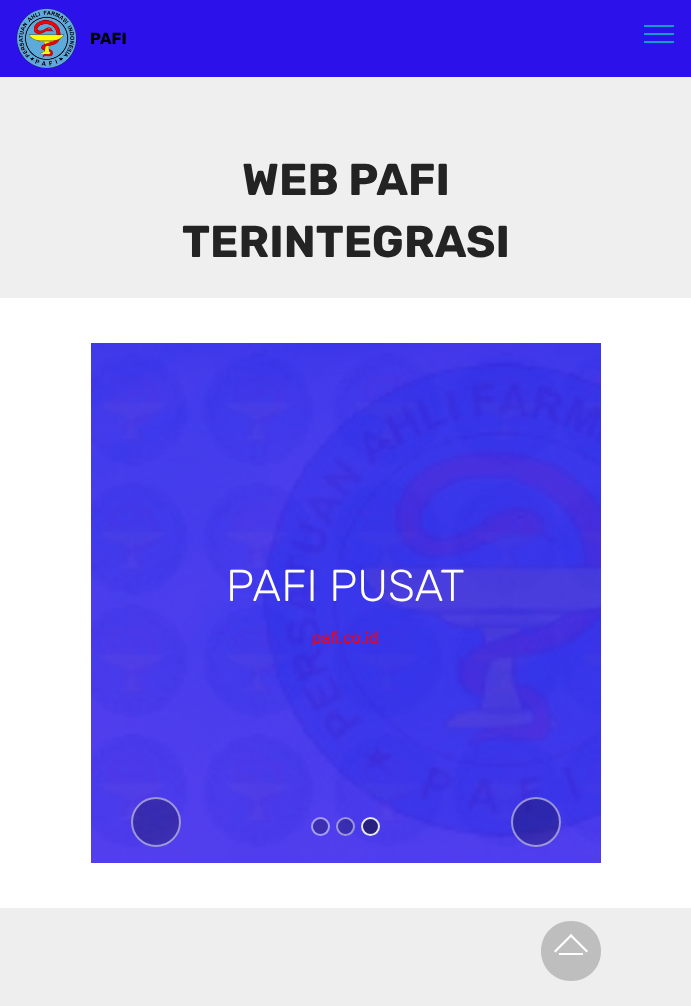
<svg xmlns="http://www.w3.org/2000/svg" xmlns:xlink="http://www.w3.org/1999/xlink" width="691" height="1006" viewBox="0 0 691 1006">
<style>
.cls-1{font:bold 16px Rubik;fill:#000000}
.cls-2{font:bold 44.5px Rubik;fill:#232323}
.cls-3{font:300 44.5px Rubik;fill:#ffffff}
.cls-4{font:16px Rubik;fill:#ff0000}
</style>
<rect width="100%" height="100%" fill="#ffffff"/>
<rect fill="#2c11ea" x="0" y="0" width="691" height="77"/>
<image xlink:href="image0.png" x="16" y="8" width="61" height="60"/>
<rect fill="#149dcc" x="644" y="25" width="30" height="2"/>
<rect fill="#149dcc" x="644" y="33" width="30" height="2"/>
<rect fill="#149dcc" x="644" y="41" width="30" height="2"/>
<rect fill="#efefef" x="0" y="77" width="691" height="221"/>
<image xlink:href="image1.png" x="91" y="343" width="510" height="520"/>
<circle fill="#000000" fill-opacity="0.25" cx="156" cy="822" r="25"/>
<circle fill="none" stroke="#ffffff" stroke-opacity="0.5" stroke-width="2" cx="156" cy="822" r="24"/>
<circle fill="#3c2eb1" stroke="#a79ef6" stroke-width="2" cx="320.5" cy="826.5" r="8.5"/>
<circle fill="#000000" fill-opacity="0.25" cx="345.5" cy="826.5" r="9.5"/>
<circle fill="none" stroke="#ffffff" stroke-opacity="0.5" stroke-width="2" cx="345.5" cy="826.5" r="8.5"/>
<circle fill="#000000" fill-opacity="0.45" cx="370.5" cy="826.5" r="9.5"/>
<circle fill="none" stroke="#ffffff" stroke-opacity="0.9" stroke-width="2" cx="370.5" cy="826.5" r="8.5"/>
<circle fill="#000000" fill-opacity="0.25" cx="536" cy="822" r="25"/>
<circle fill="none" stroke="#ffffff" stroke-opacity="0.5" stroke-width="2" cx="536" cy="822" r="24"/>
<rect fill="#eeeeee" x="0" y="908" width="691" height="98"/>
<path fill="#bebebe" d="M571 981C554 981 541 968 541 951C541 934 554 921 571 921C588 921 601 934 601 951C601 968 588 981 571 981Z"/>
<path fill="#ffffff" d="M554 951L571 934L572.5 935.5L555.5 952.5Z"/>
<path fill="#ffffff" d="M569.5 935.5L571 934L588 951L586.5 952.5Z"/>
<rect fill="#ffffff" x="559" y="953" width="24" height="2"/>
<text class="cls-1" x="90" y="44">PAFI</text>
<text class="cls-2" x="242" y="195">WEB PAFI</text>
<text class="cls-2" x="182" y="257">TERINTEGRASI</text>
<text class="cls-3" x="226" y="601">PAFI PUSAT</text>
<text class="cls-4" x="312" y="643">pafi.co.id</text>
</svg>
